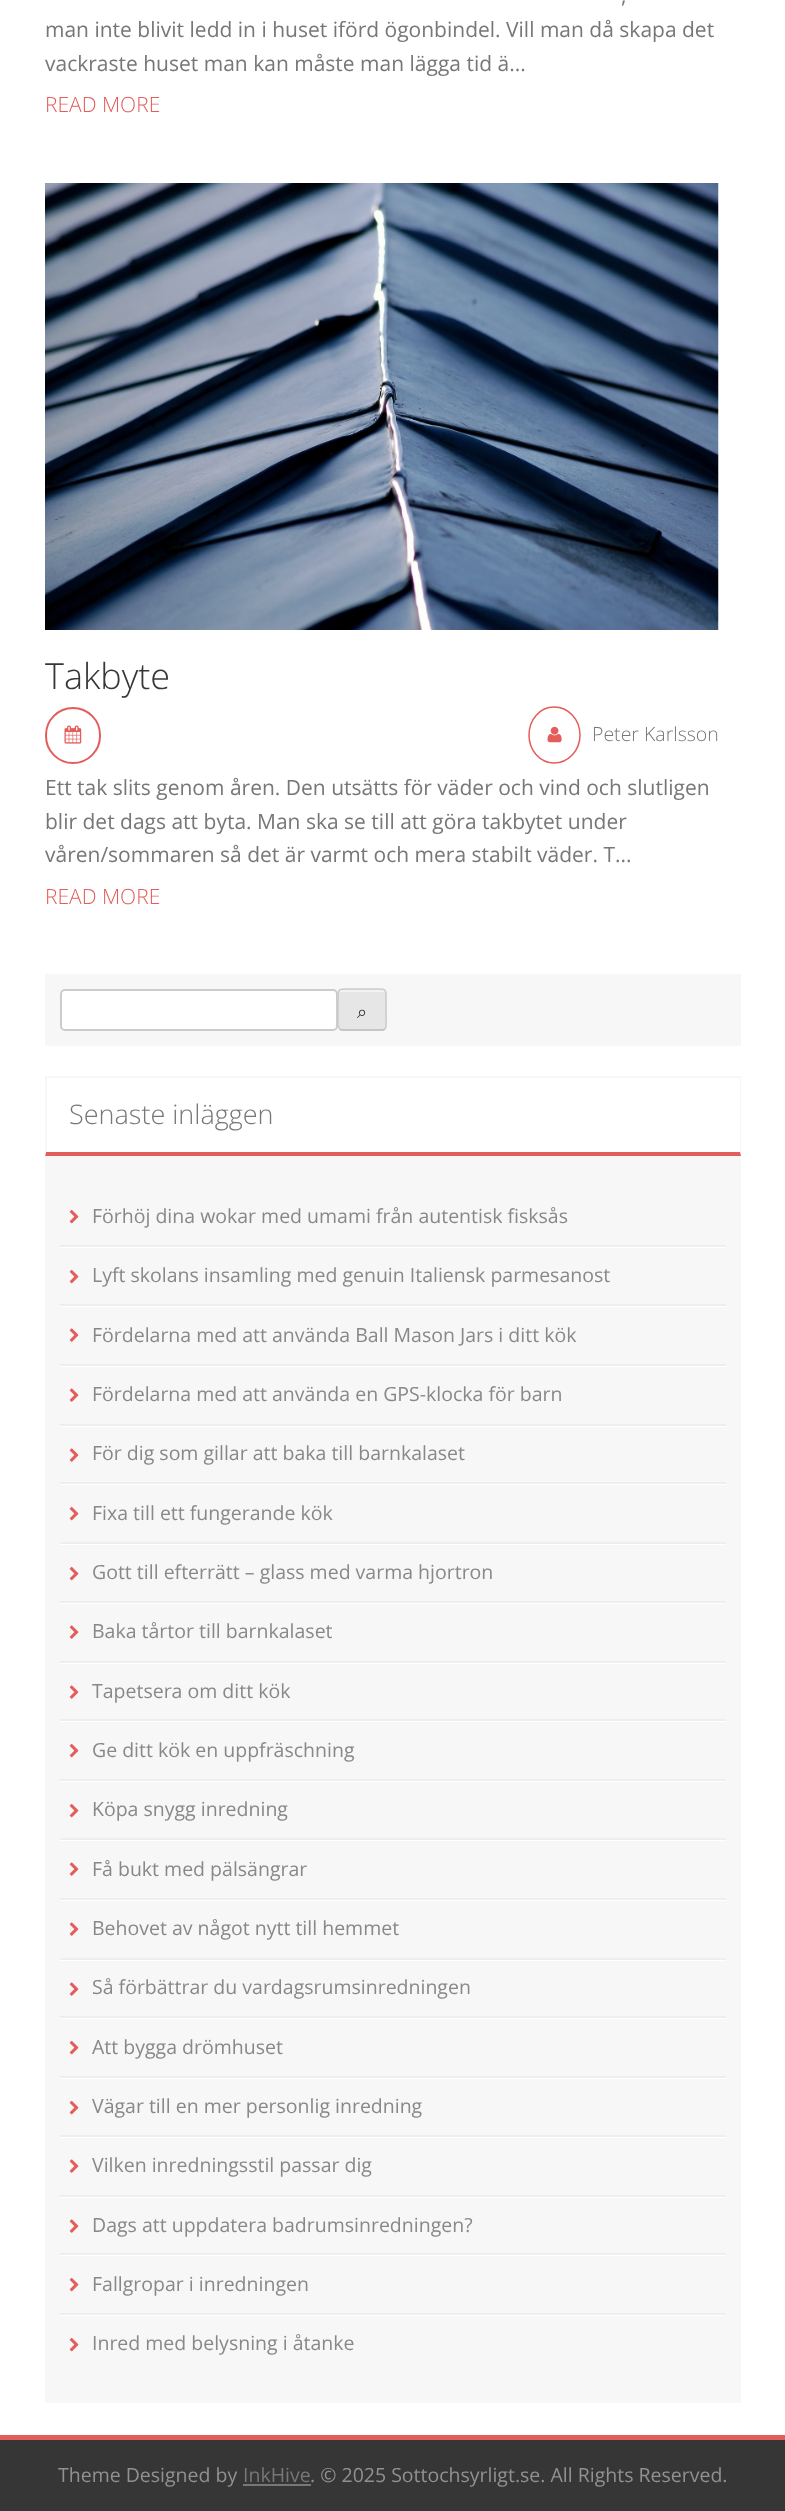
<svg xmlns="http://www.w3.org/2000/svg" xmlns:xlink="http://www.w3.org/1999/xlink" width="785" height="2511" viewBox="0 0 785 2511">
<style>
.cls-1{font:21px Open Sans;fill:#777777}
.cls-2{font:300 21px Open Sans;fill:#e35d5b}
.cls-3{font:300 36px Open Sans;fill:#373737}
.cls-4{font:300 19.5px Open Sans;fill:#777777}
.cls-5{font:18px FreeSerif;fill:#2e2e2e}
.cls-6{font:300 27px Open Sans;fill:#777777}
.cls-7{font:19.5px Open Sans;fill:#888888}
.cls-8{font:19.5px Open Sans;fill:#919191}
.cls-9{font:19.5px Open Sans;fill:#777777}
</style>
<rect width="100%" height="100%" fill="#ffffff"/>
<image xlink:href="image0.png" x="45" y="183" width="674" height="447"/>
<rect fill="none" stroke="#e35d5b" stroke-width="2" x="46" y="708" width="54" height="55" rx="27"/>
<image xlink:href="image1.png" x="64" y="725" width="18" height="19"/>
<path fill="none" stroke="#e35d5b" stroke-width="1.5" d="M554 707C568.5 707 580 719.5 580 735C580 750.5 568.5 763 554 763C540 763 529 750.5 529 735C529 719.5 540 707 554 707Z"/>
<image xlink:href="image2.png" x="547" y="726" width="15" height="17"/>
<rect fill="#f7f7f7" x="45" y="974" width="696" height="72"/>
<rect fill="#ffffff" stroke="#cccccc" stroke-width="2" x="61" y="990" width="276" height="40" rx="4"/>
<rect fill="#e6e6e6" x="338" y="989" width="49" height="42" rx="5"/>
<path fill="#f3f3f3" d="M342 992H384L386 994C386 988 380 990 376 990H349C345 990 339 988 339 994C339 993 340 992 342 992Z"/>
<path fill="none" stroke="#bbbbbb" stroke-width="1.5" d="M385 1028.5C384.5 1029.5 383.5 1030 382.5 1030H342C341 1030 340 1029.5 339.5 1028.5"/>
<path fill="none" stroke="#cccccc" stroke-width="1.5" d="M339.5 1028.5C337.5 1026.5 338 1022.5 338 1020.5V998.5C338 988.5 338.5 989 349 989H376C386 989 386 988.5 386 998.5V1020.5C386 1022.5 387 1026.5 385 1028.5"/>
<rect fill="#f7f7f7" x="45" y="1076" width="696" height="1327"/>
<rect fill="#ffffff" x="47" y="1078" width="693" height="74"/>
<path fill="#e35d5b" d="M741 1156H45L46 1152H740Z"/>
<path fill="#f7f7f7" d="M45 1156V1076L46 1077V1152Z"/>
<rect fill="#ffffff" x="60" y="1247" width="666" height="1"/>
<rect fill="#eeeeee" x="60" y="1245" width="666" height="2"/>
<image xlink:href="image3.png" x="69" y="1209" width="10" height="15"/>
<rect fill="#ffffff" x="60" y="1306" width="666" height="1"/>
<rect fill="#eeeeee" x="60" y="1304" width="666" height="2"/>
<image xlink:href="image3.png" x="69" y="1269" width="10" height="15"/>
<rect fill="#ffffff" x="60" y="1366" width="666" height="1"/>
<rect fill="#eeeeee" x="60" y="1364" width="666" height="2"/>
<image xlink:href="image4.png" x="69" y="1328" width="10" height="14"/>
<rect fill="#ffffff" x="60" y="1426" width="666" height="1"/>
<rect fill="#eeeeee" x="60" y="1424" width="666" height="2"/>
<image xlink:href="image4.png" x="69" y="1388" width="10" height="14"/>
<rect fill="#ffffff" x="60" y="1484" width="666" height="1"/>
<rect fill="#eeeeee" x="60" y="1482" width="666" height="2"/>
<image xlink:href="image4.png" x="69" y="1448" width="10" height="14"/>
<rect fill="#ffffff" x="60" y="1544" width="666" height="1"/>
<rect fill="#eeeeee" x="60" y="1542" width="666" height="2"/>
<image xlink:href="image3.png" x="69" y="1506" width="10" height="15"/>
<rect fill="#ffffff" x="60" y="1603" width="666" height="1"/>
<rect fill="#eeeeee" x="60" y="1601" width="666" height="2"/>
<image xlink:href="image3.png" x="69" y="1566" width="10" height="15"/>
<rect fill="#ffffff" x="60" y="1663" width="666" height="1"/>
<rect fill="#eeeeee" x="60" y="1661" width="666" height="2"/>
<image xlink:href="image4.png" x="69" y="1625" width="10" height="14"/>
<rect fill="#ffffff" x="60" y="1721" width="666" height="1"/>
<rect fill="#eeeeee" x="60" y="1719" width="666" height="2"/>
<image xlink:href="image4.png" x="69" y="1685" width="10" height="14"/>
<rect fill="#ffffff" x="60" y="1781" width="666" height="1"/>
<rect fill="#eeeeee" x="60" y="1779" width="666" height="2"/>
<image xlink:href="image3.png" x="69" y="1743" width="10" height="15"/>
<rect fill="#ffffff" x="60" y="1840" width="666" height="1"/>
<rect fill="#eeeeee" x="60" y="1838" width="666" height="2"/>
<image xlink:href="image3.png" x="69" y="1803" width="10" height="15"/>
<rect fill="#ffffff" x="60" y="1900" width="666" height="1"/>
<rect fill="#eeeeee" x="60" y="1898" width="666" height="2"/>
<image xlink:href="image4.png" x="69" y="1862" width="10" height="14"/>
<rect fill="#ffffff" x="60" y="1960" width="666" height="1"/>
<rect fill="#eeeeee" x="60" y="1958" width="666" height="2"/>
<image xlink:href="image4.png" x="69" y="1922" width="10" height="14"/>
<rect fill="#ffffff" x="60" y="2018" width="666" height="1"/>
<rect fill="#eeeeee" x="60" y="2016" width="666" height="2"/>
<image xlink:href="image4.png" x="69" y="1982" width="10" height="14"/>
<rect fill="#ffffff" x="60" y="2078" width="666" height="1"/>
<rect fill="#eeeeee" x="60" y="2076" width="666" height="2"/>
<image xlink:href="image3.png" x="69" y="2040" width="10" height="15"/>
<rect fill="#ffffff" x="60" y="2137" width="666" height="1"/>
<rect fill="#eeeeee" x="60" y="2135" width="666" height="2"/>
<image xlink:href="image3.png" x="69" y="2100" width="10" height="15"/>
<rect fill="#ffffff" x="60" y="2197" width="666" height="1"/>
<rect fill="#eeeeee" x="60" y="2195" width="666" height="2"/>
<image xlink:href="image4.png" x="69" y="2159" width="10" height="14"/>
<rect fill="#ffffff" x="60" y="2255" width="666" height="1"/>
<rect fill="#eeeeee" x="60" y="2253" width="666" height="2"/>
<image xlink:href="image4.png" x="69" y="2219" width="10" height="14"/>
<rect fill="#ffffff" x="60" y="2315" width="666" height="1"/>
<rect fill="#eeeeee" x="60" y="2313" width="666" height="2"/>
<image xlink:href="image3.png" x="69" y="2277" width="10" height="15"/>
<image xlink:href="image3.png" x="69" y="2337" width="10" height="15"/>
<rect fill="#363636" x="0" y="2440" width="785" height="71"/>
<rect fill="#e35d5b" x="0" y="2435" width="785" height="5"/>
<rect fill="#777777" x="243" y="2484" width="68" height="2"/>
<text class="cls-1" x="621" y="3">,</text>
<text class="cls-1"><tspan x="45" y="37">man inte blivit ledd in i huset iförd ögonbindel. Vill man då skapa det</tspan><tspan x="45" y="71">vackraste huset man kan måste man lägga tid ä...</tspan></text>
<text class="cls-2" x="45" y="112">READ MORE</text>
<text class="cls-3" x="45" y="689">Takbyte</text>
<text class="cls-4" x="592" y="741">Peter Karlsson</text>
<text class="cls-1"><tspan x="45" y="795">Ett tak slits genom åren. Den utsätts för väder och vind och slutligen</tspan><tspan x="45" y="829">blir det dags att byta. Man ska se till att göra takbytet under</tspan><tspan x="45" y="862">våren/sommaren så det är varmt och mera stabilt väder. T...</tspan></text>
<text class="cls-2" x="45" y="904">READ MORE</text>
<text class="cls-5" x="357" y="1018">⌕</text>
<text class="cls-6" x="69" y="1124">Senaste inläggen</text>
<text class="cls-7" x="92" y="1223">Förhöj dina wokar med umami från autentisk fisksås</text>
<text class="cls-7" x="92" y="1282">Lyft skolans insamling med genuin Italiensk parmesanost</text>
<text class="cls-7" x="92" y="1342">Fördelarna med att använda Ball Mason Jars i ditt kök</text>
<text class="cls-7" x="92" y="1401">Fördelarna med att använda en GPS-klocka för barn</text>
<text class="cls-7" x="92" y="1460">För dig som gillar att baka till barnkalaset</text>
<text class="cls-7" x="92" y="1520">Fixa till ett fungerande kök</text>
<text class="cls-7" x="92" y="1579">Gott till efterrätt – glass med varma hjortron</text>
<text class="cls-7" x="92" y="1638">Baka tårtor till barnkalaset</text>
<text class="cls-7" x="92" y="1698">Tapetsera om ditt kök</text>
<text class="cls-7" x="92" y="1757">Ge ditt kök en uppfräschning</text>
<text class="cls-7" x="92" y="1816">Köpa snygg inredning</text>
<text class="cls-7" x="92" y="1876">Få bukt med pälsängrar</text>
<text class="cls-7" x="92" y="1935">Behovet av något nytt till hemmet</text>
<text class="cls-7" x="92" y="1994">Så förbättrar du vardagsrumsinredningen</text>
<text class="cls-7" x="92" y="2054">Att bygga drömhuset</text>
<text class="cls-7" x="92" y="2113">Vägar till en mer personlig inredning</text>
<text class="cls-7" x="92" y="2172">Vilken inredningsstil passar dig</text>
<text class="cls-7" x="92" y="2232">Dags att uppdatera badrumsinredningen?</text>
<text class="cls-7" x="92" y="2291">Fallgropar i inredningen</text>
<text class="cls-7" x="92" y="2350">Inred med belysning i åtanke</text>
<text class="cls-8" x="58" y="2482">Theme Designed by</text>
<text class="cls-9" x="243" y="2482">InkHive</text>
<text class="cls-8" x="310" y="2482">. © 2025 Sottochsyrligt.se. All Rights Reserved.</text>
</svg>
